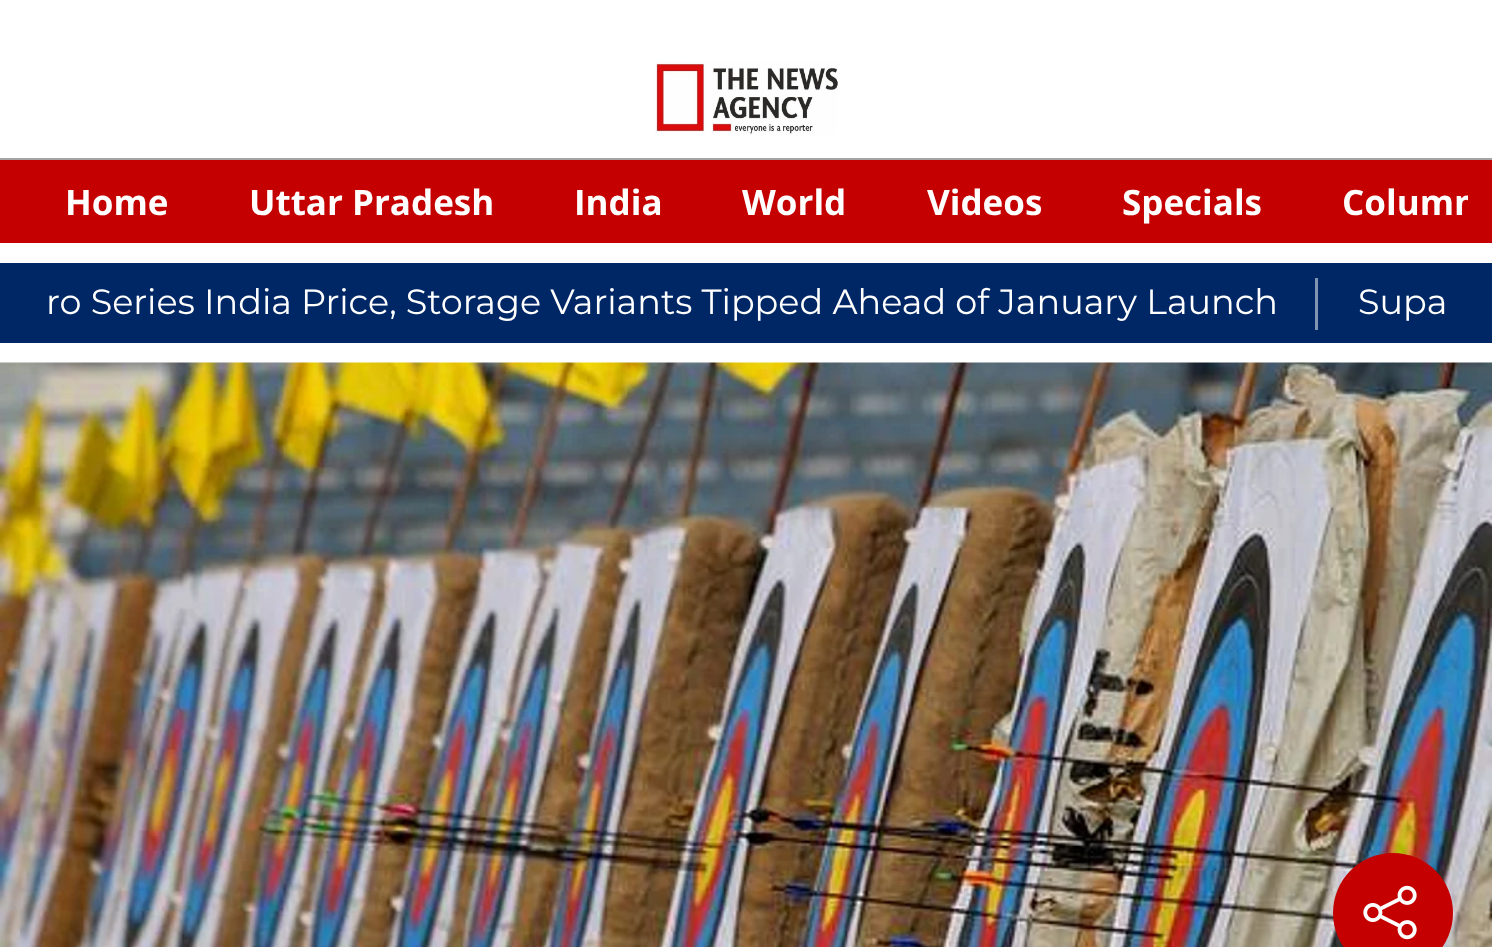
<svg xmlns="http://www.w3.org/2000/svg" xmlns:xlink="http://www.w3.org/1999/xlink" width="1492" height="947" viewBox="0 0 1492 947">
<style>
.cls-1{font:bold 35px Open Sans;fill:#ffffff}
.cls-2{font:100 35px Montserrat;fill:#ffffff}
</style>
<defs>
<clipPath id="clip1"><rect x="25" y="160" width="1443" height="83"/></clipPath>
</defs>
<rect width="100%" height="100%" fill="#ffffff"/>
<rect fill="#a4a4a4" x="0" y="158" width="1492" height="2"/>
<image xlink:href="image0.png" x="655" y="61" width="183" height="74"/>
<rect fill="#c40000" x="0" y="160" width="1492" height="83"/>
<rect fill="#002765" x="0" y="263" width="1492" height="80"/>
<rect fill="#8093b2" x="1315" y="278" width="3" height="52"/>
<image xlink:href="image1.png" x="0" y="362" width="1492" height="585"/>
<circle fill="#c40000" cx="1393" cy="913" r="60"/>
<image xlink:href="image2.png" x="1363" y="885" width="54" height="55"/>
<text class="cls-1" x="65" y="215">Home</text>
<text class="cls-1" x="249" y="215">Uttar Pradesh</text>
<text class="cls-1" x="574" y="215">India</text>
<text class="cls-1" x="742" y="215">World</text>
<text class="cls-1" x="927" y="215">Videos</text>
<text class="cls-1" x="1122" y="215">Specials</text>
<g clip-path="url(#clip1)">
<text class="cls-1" x="1342" y="215">Column</text>
</g>
<text class="cls-2" x="46" y="314">ro Series India Price, Storage Variants Tipped Ahead of January Launch</text>
<text class="cls-2" x="1358" y="314">Supa</text>
</svg>
